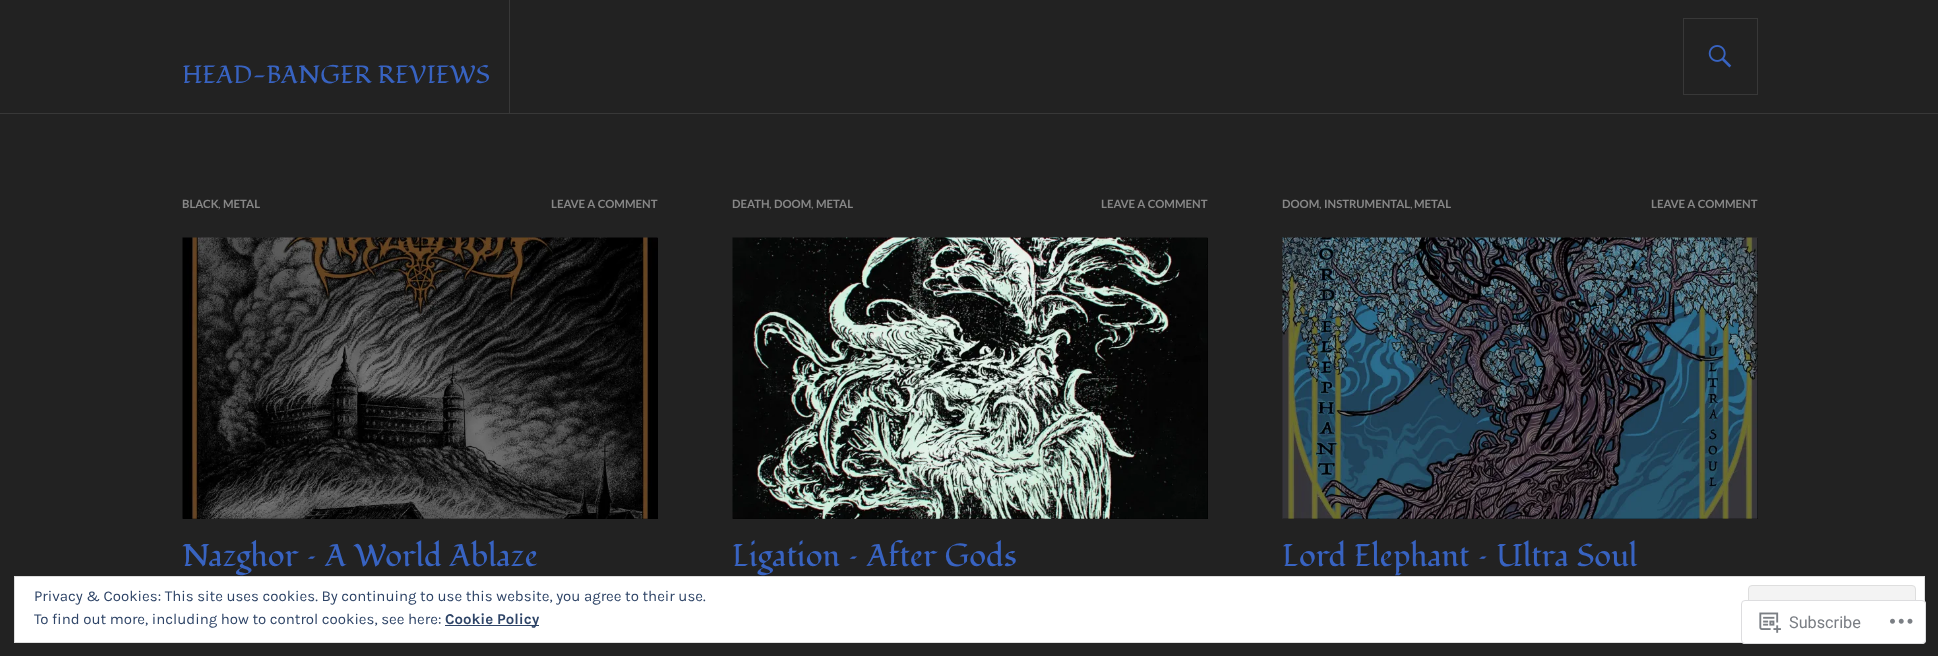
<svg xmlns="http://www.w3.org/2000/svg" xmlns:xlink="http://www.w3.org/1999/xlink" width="1938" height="656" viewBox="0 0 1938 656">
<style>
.cls-1{font:25px Fondamento;fill:#3863c1}
.cls-2{font:bold 11.4px Lato;fill:#878787}
.cls-3{font:11.4px Lato;fill:#878787}
.cls-4{font:31.25px Fondamento;fill:#3863c1}
.cls-5{font:15px Karla;fill:#2e4467}
.cls-6{font:bold 15px Karla;fill:#2e4467}
.cls-7{font:16.25px Roboto;fill:#7a7e84}
</style>
<rect width="100%" height="100%" fill="#222222"/>
<rect fill="#383838" x="0" y="113" width="1938" height="1"/>
<rect fill="#383838" x="509" y="0" width="1" height="113"/>
<rect fill="none" stroke="#383838" x="1683.5" y="18.5" width="74" height="76"/>
<image xlink:href="image0.png" x="1708" y="45" width="24" height="23"/>
<rect fill="#000000" x="183" y="238" width="475" height="281"/>
<image xlink:href="image1.png" x="182" y="237" width="476" height="282"/>
<rect fill="#000000" x="733" y="238" width="475" height="281"/>
<image xlink:href="image2.png" x="732" y="237" width="476" height="282"/>
<rect fill="#000000" x="1283" y="238" width="475" height="281"/>
<image xlink:href="image3.png" x="1282" y="237" width="476" height="282"/>
<rect fill="#ffffff" stroke="#dedede" x="14.5" y="576.5" width="1910" height="66"/>
<rect fill="#f3f3f3" stroke="#dedede" x="1748.5" y="585.5" width="167" height="48" rx="3.5"/>
<rect fill="#2e4467" x="445" y="625" width="94" height="1"/>
<rect fill="#ffffff" fill-opacity="0.98" x="1741" y="600" width="185" height="44" rx="4"/>
<rect fill="none" stroke="#dcdcde" stroke-opacity="0.98" x="1741.5" y="600.5" width="184" height="43" rx="3.5"/>
<image xlink:href="image4.png" x="1759" y="612" width="22" height="21"/>
<image xlink:href="image5.png" x="1890" y="618" width="23" height="6"/>
<text class="cls-1" x="182" y="83">HEAD-BANGER REVIEWS</text>
<text class="cls-2" x="182" y="208">BLACK</text>
<text class="cls-3" x="218" y="208">,</text>
<text class="cls-2" x="223" y="208">METAL</text>
<text class="cls-2" x="551" y="208">LEAVE A COMMENT</text>
<text class="cls-4" x="182" y="566">Nazghor – A World Ablaze</text>
<text class="cls-2" x="732" y="208">DEATH</text>
<text class="cls-3" x="769" y="208">,</text>
<text class="cls-2" x="774" y="208">DOOM</text>
<text class="cls-3" x="811" y="208">,</text>
<text class="cls-2" x="816" y="208">METAL</text>
<text class="cls-2" x="1101" y="208">LEAVE A COMMENT</text>
<text class="cls-4" x="732" y="566">Ligation – After Gods</text>
<text class="cls-2" x="1282" y="208">DOOM</text>
<text class="cls-3" x="1319" y="208">,</text>
<text class="cls-2" x="1324" y="208">INSTRUMENTAL</text>
<text class="cls-3" x="1410" y="208">,</text>
<text class="cls-2" x="1414" y="208">METAL</text>
<text class="cls-2" x="1651" y="208">LEAVE A COMMENT</text>
<text class="cls-4" x="1282" y="566">Lord Elephant – Ultra Soul</text>
<text class="cls-5"><tspan x="34" y="601">Privacy &amp; Cookies: This site uses cookies. By continuing to use this website, you agree to their use.</tspan><tspan x="34" y="624">To find out more, including how to control cookies, see here:</tspan></text>
<text class="cls-6" x="445" y="624">Cookie Policy</text>
<text class="cls-7" x="1789" y="628">Subscribe</text>
</svg>
